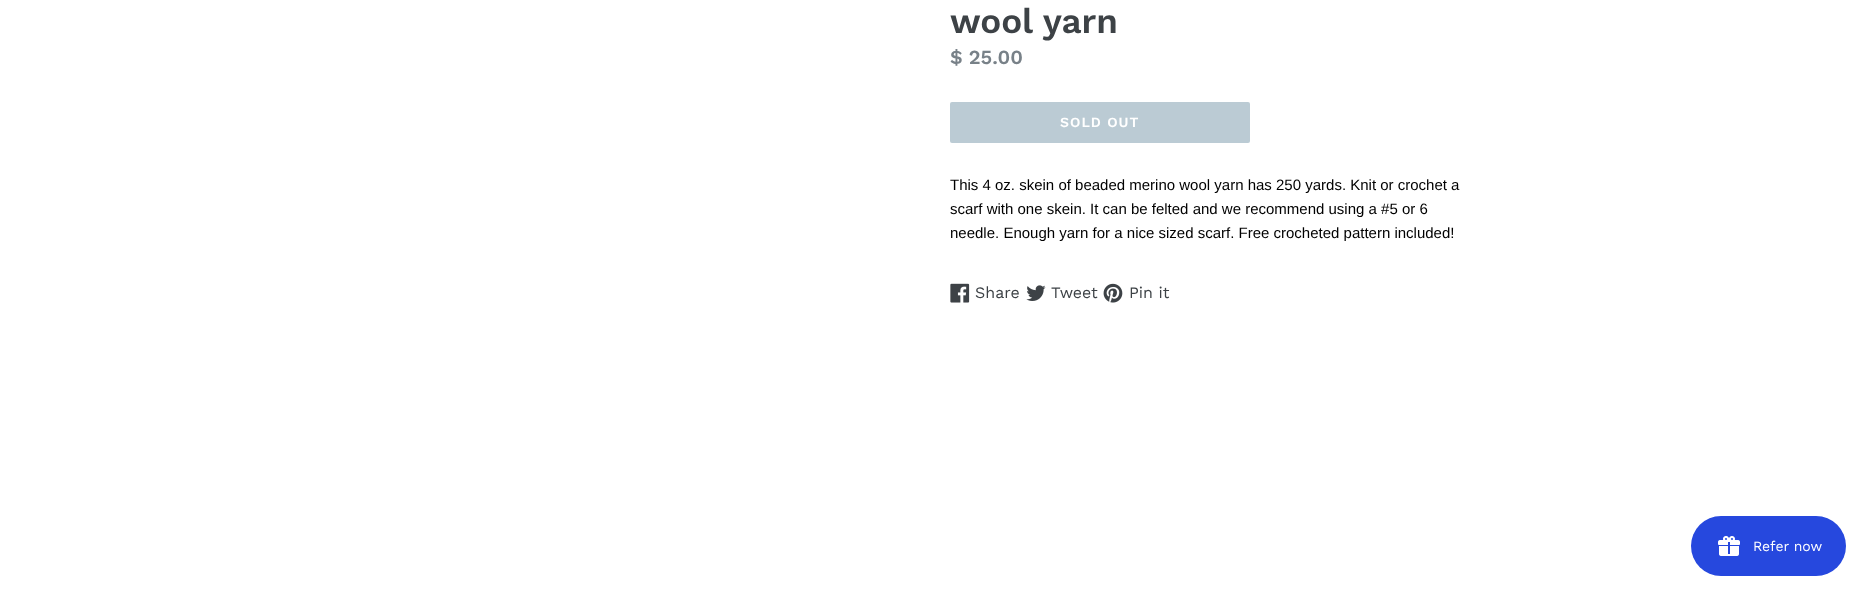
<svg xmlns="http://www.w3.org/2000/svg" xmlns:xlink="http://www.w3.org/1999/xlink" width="1870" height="600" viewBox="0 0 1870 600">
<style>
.cls-1{font:600 35px Work Sans;fill:#3d4246}
.cls-2{font:600 20px Work Sans;fill:#788188}
.cls-3{font:600 14px Work Sans;letter-spacing:1px;fill:#ffffff}
.cls-4{font:15px Liberation Sans;fill:#000000}
.cls-5{font:16px Work Sans;fill:#3d4246}
.cls-6{font:14px Work Sans;fill:#ffffff}
</style>
<rect width="100%" height="100%" fill="#ffffff"/>
<rect fill="#bbcbd4" x="950" y="102" width="300" height="41" rx="2"/>
<image xlink:href="image0.png" x="950" y="283" width="20" height="20"/>
<image xlink:href="image1.png" x="1026" y="285" width="20" height="16"/>
<image xlink:href="image2.png" x="1103" y="283" width="20" height="20"/>
<rect fill="#2648de" x="1691" y="516" width="155" height="60" rx="30"/>
<image xlink:href="image3.png" x="1718" y="535" width="22" height="21"/>
<text class="cls-1" x="950" y="33">wool yarn</text>
<text class="cls-2" x="950" y="64">$ 25.00</text>
<text class="cls-3" x="1060" y="127">SOLD OUT</text>
<text class="cls-4"><tspan x="950" y="190">This 4 oz. skein of beaded merino wool yarn has 250 yards. Knit or crochet a</tspan><tspan x="950" y="214">scarf with one skein. It can be felted and we recommend using a #5 or 6</tspan><tspan x="950" y="238">needle. Enough yarn for a nice sized scarf. Free crocheted pattern included!</tspan></text>
<text class="cls-5" x="975" y="298">Share</text>
<text class="cls-5" x="1051" y="298">Tweet</text>
<text class="cls-5" x="1129" y="298">Pin it</text>
<text class="cls-6" x="1753" y="551">Refer now</text>
</svg>
